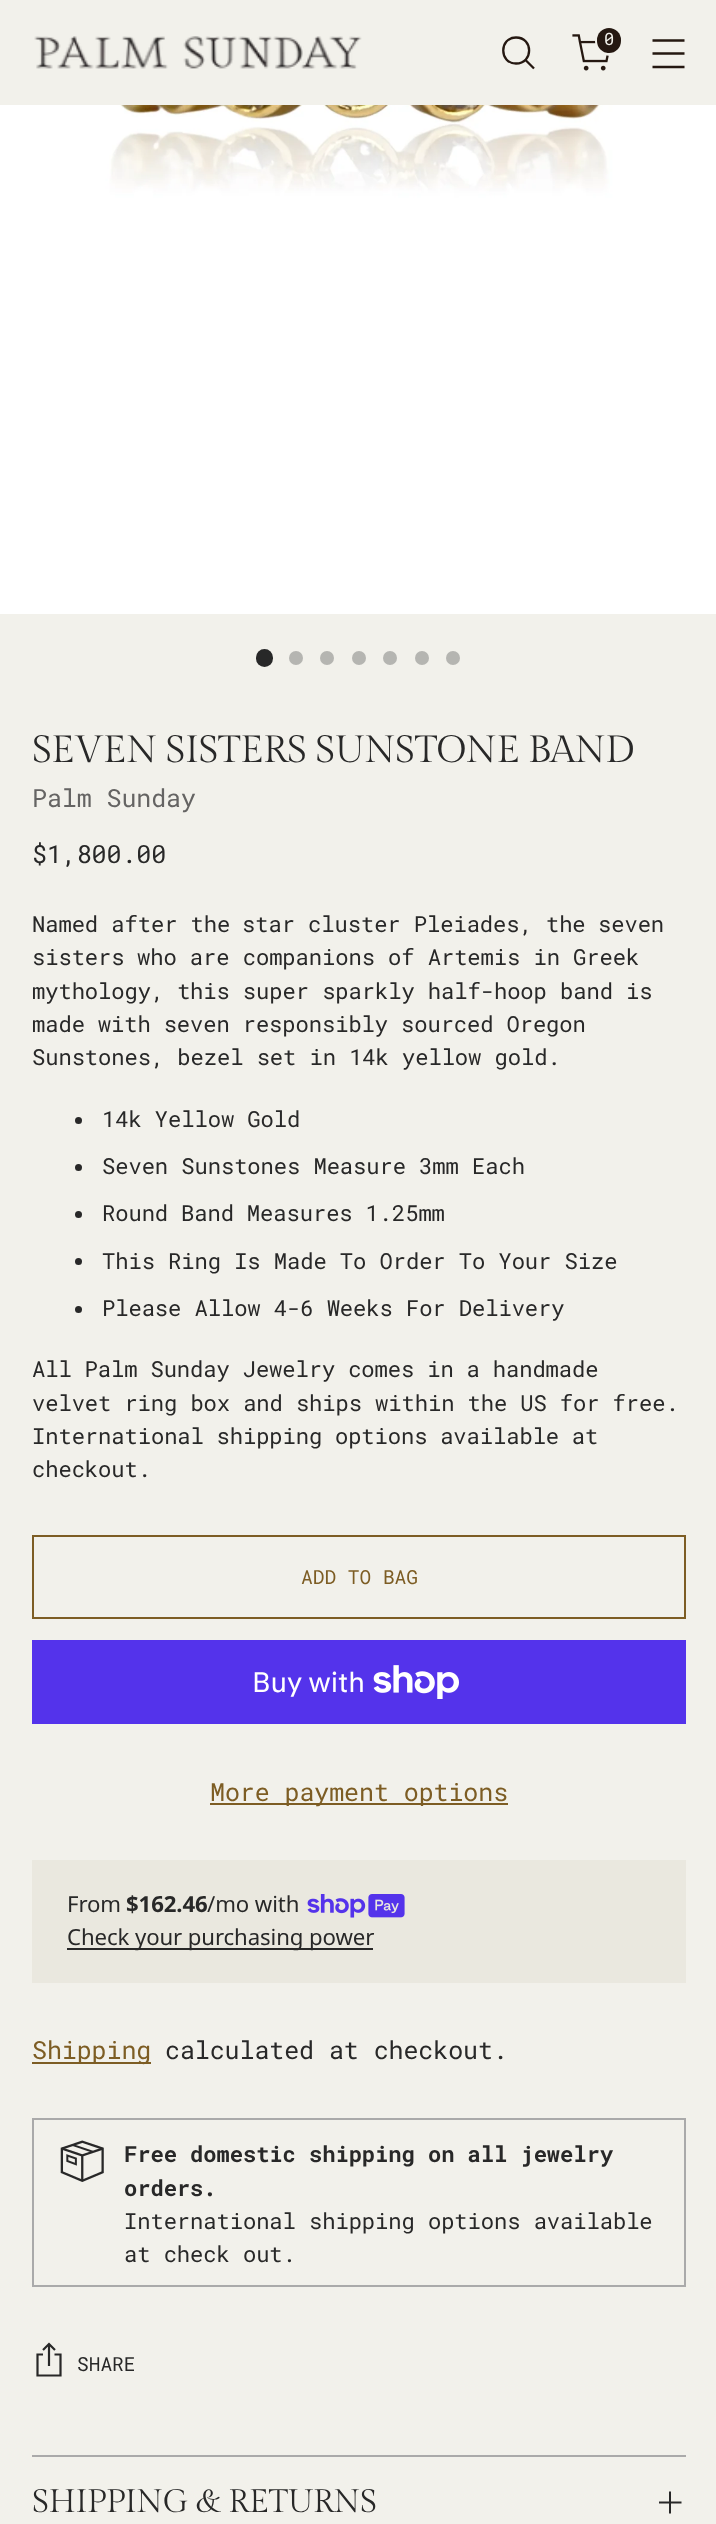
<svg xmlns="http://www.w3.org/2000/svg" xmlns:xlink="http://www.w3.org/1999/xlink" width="716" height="2524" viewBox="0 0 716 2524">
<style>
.cls-1{font:17px Roboto Mono;letter-spacing:-0.1px;fill:#f2f1eb}
.cls-2{font:38px Gilda Display;letter-spacing:-0.6px;fill:#282828}
.cls-3{font:25px Roboto Mono;letter-spacing:-0.1px;fill:#656463}
.cls-4{font:25px Roboto Mono;letter-spacing:-0.1px;fill:#282828}
.cls-5{font:22.2px Roboto Mono;letter-spacing:-0.1px;fill:#282828}
.cls-6{font:19.5px Roboto Mono;fill:#7d5d24}
.cls-7{font:28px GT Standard;letter-spacing:-0.1px;fill:#ffffff}
.cls-8{font:25px Roboto Mono;letter-spacing:-0.1px;fill:#7d5d24}
.cls-9{font:22.2px Noto Sans;letter-spacing:-0.1px;fill:#282828}
.cls-10{font:bold 22.2px Noto Sans;letter-spacing:-0.1px;fill:#282828}
.cls-11{font:bold 22.2px Roboto Mono;letter-spacing:-0.1px;fill:#282828}
.cls-12{font:19.5px Roboto Mono;fill:#282828}
.cls-13{font:32.5px Gilda Display;letter-spacing:-0.5px;fill:#282828}
</style>
<rect width="100%" height="100%" fill="#f2f1eb"/>
<image xlink:href="image0.png" x="34" y="36" width="328" height="33"/>
<path fill="none" stroke="#251811" stroke-width="2.3" stroke-linecap="round" d="M516 63.5C533.5 63.5 533.5 37.5 516 37.5C499 37.5 499 63.5 516 63.5Z"/>
<path fill="none" stroke="#251811" stroke-width="2.3" d="M525.5 60L534 68.5"/>
<image xlink:href="image1.png" x="572" y="34" width="38" height="37"/>
<circle fill="none" stroke="#f2f1eb" stroke-width="3" cx="610" cy="41" r="13.5"/>
<rect fill="#251811" x="597" y="28" width="24" height="25" rx="12"/>
<path fill="none" stroke="#251811" stroke-width="2.3" d="M652.5 53.5H684.5M652.5 40.5H684.5M652.5 67H684.5"/>
<image xlink:href="image2.png" x="0" y="105" width="716" height="509"/>
<rect fill="#282828" x="256" y="649" width="17" height="18" rx="8.5"/>
<circle fill="#b5b5b1" cx="296" cy="658" r="7"/>
<circle fill="#b5b5b1" cx="327" cy="658" r="7"/>
<circle fill="#b5b5b1" cx="359" cy="658" r="7"/>
<circle fill="#b5b5b1" cx="390" cy="658" r="7"/>
<circle fill="#b5b5b1" cx="422" cy="658" r="7"/>
<circle fill="#b5b5b1" cx="453" cy="658" r="7"/>
<circle fill="#282828" cx="78.5" cy="1120.5" r="3.5"/>
<circle fill="#282828" cx="78.5" cy="1167.5" r="3.5"/>
<circle fill="#282828" cx="78.5" cy="1214.5" r="3.5"/>
<circle fill="#282828" cx="78.5" cy="1261.5" r="3.5"/>
<circle fill="#282828" cx="78.5" cy="1309.5" r="3.5"/>
<rect fill="none" stroke="#7d5d24" stroke-width="2" x="33" y="1536" width="652" height="82"/>
<rect fill="#5433eb" x="32" y="1640" width="654" height="84"/>
<image xlink:href="image3.png" x="373" y="1665" width="86" height="34"/>
<rect fill="#7d5d24" x="210" y="1803" width="298" height="2"/>
<rect fill="#eae8df" x="32" y="1860" width="654" height="123"/>
<image xlink:href="image4.png" x="307" y="1894" width="98" height="24"/>
<rect fill="#282828" x="67" y="1948" width="306" height="2"/>
<rect fill="#7d5d24" x="32" y="2062" width="119" height="2"/>
<rect fill="none" stroke="#aaaaaa" stroke-width="2" x="33" y="2119" width="652" height="167"/>
<image xlink:href="image5.png" x="60" y="2140" width="44" height="42"/>
<path fill="none" stroke="#282828" stroke-width="2.2" d="M43 2354.5H37.5V2375.5H60.5V2354.5H54.5M49 2366V2345M55 2350L49 2344L43 2350"/>
<rect fill="#aaaaaa" x="32" y="2455" width="654" height="2"/>
<path fill="none" stroke="#282828" stroke-width="2" d="M659 2502.5H670M681.5 2502.5H670M670 2502.5V2491.5M670 2502.5V2513.5"/>
<text class="cls-1" x="604" y="45">0</text>
<text class="cls-2" x="32" y="762">SEVEN SISTERS SUNSTONE BAND</text>
<text class="cls-3" x="32" y="807">Palm Sunday</text>
<text class="cls-4" x="32" y="863">$1,800.00</text>
<text class="cls-5" x="32" y="932">Named after the</text>
<text class="cls-5" x="242" y="932">star cluster Pleiades, the</text>
<text class="cls-5" x="598" y="932">seven</text>
<text class="cls-5" x="32" y="965">sisters</text>
<text class="cls-5" x="137" y="965">who are companions of Artemis in Greek</text>
<text class="cls-5" x="32" y="999">mythology, t</text>
<text class="cls-5" x="190" y="999">his super sparkly half-hoop band is</text>
<text class="cls-5"><tspan x="32" y="1032" word-spacing="-0.25">made with seven responsibly sourced Oregon</tspan><tspan x="32" y="1065">Sunstones, bezel set in 14k yellow gold.</tspan></text>
<text class="cls-5" x="102" y="1127">14k Yellow Gold</text>
<text class="cls-5" x="102" y="1174">Seven Sunstones Measure 3mm Each</text>
<text class="cls-5" x="102" y="1221" word-spacing="-0.25">Round Band Measures 1.25mm</text>
<text class="cls-5" x="102" y="1269">This Ring Is Made To Order To Your Size</text>
<text class="cls-5" x="102" y="1316">Please Allow 4-6 Weeks For Delivery</text>
<text class="cls-5"><tspan x="32" y="1377" word-spacing="-0.25">All Palm Sunday Jewelry comes in a handmade</tspan><tspan x="32" y="1411" word-spacing="-0.1">velvet ring box and ships within the US for free.</tspan><tspan x="32" y="1444" word-spacing="-0.5">International shipping options available at</tspan><tspan x="32" y="1477">checkout.</tspan></text>
<text class="cls-6" x="301" y="1584">ADD TO BAG</text>
<text class="cls-7" x="252" y="1692">Buy with</text>
<text class="cls-8" x="210" y="1801">More payment options</text>
<text class="cls-9" x="67" y="1912">From</text>
<text class="cls-10" x="126" y="1912">$162.46</text>
<text class="cls-9" x="207" y="1912">/mo with</text>
<text class="cls-9" x="67" y="1945">Check your purchasing power</text>
<text class="cls-8" x="32" y="2059">Shipping</text>
<text class="cls-4" x="165" y="2059">calculated at checkout.</text>
<text class="cls-11"><tspan x="124" y="2162">Free domestic shipping on all jewelry</tspan><tspan x="124" y="2196">orders.</tspan></text>
<text class="cls-5"><tspan x="124" y="2229">International shipping options available</tspan><tspan x="124" y="2262">at check out.</tspan></text>
<text class="cls-12" x="77" y="2371">SHARE</text>
<text class="cls-13" x="32" y="2512">SHIPPING &amp; RETURNS</text>
</svg>
